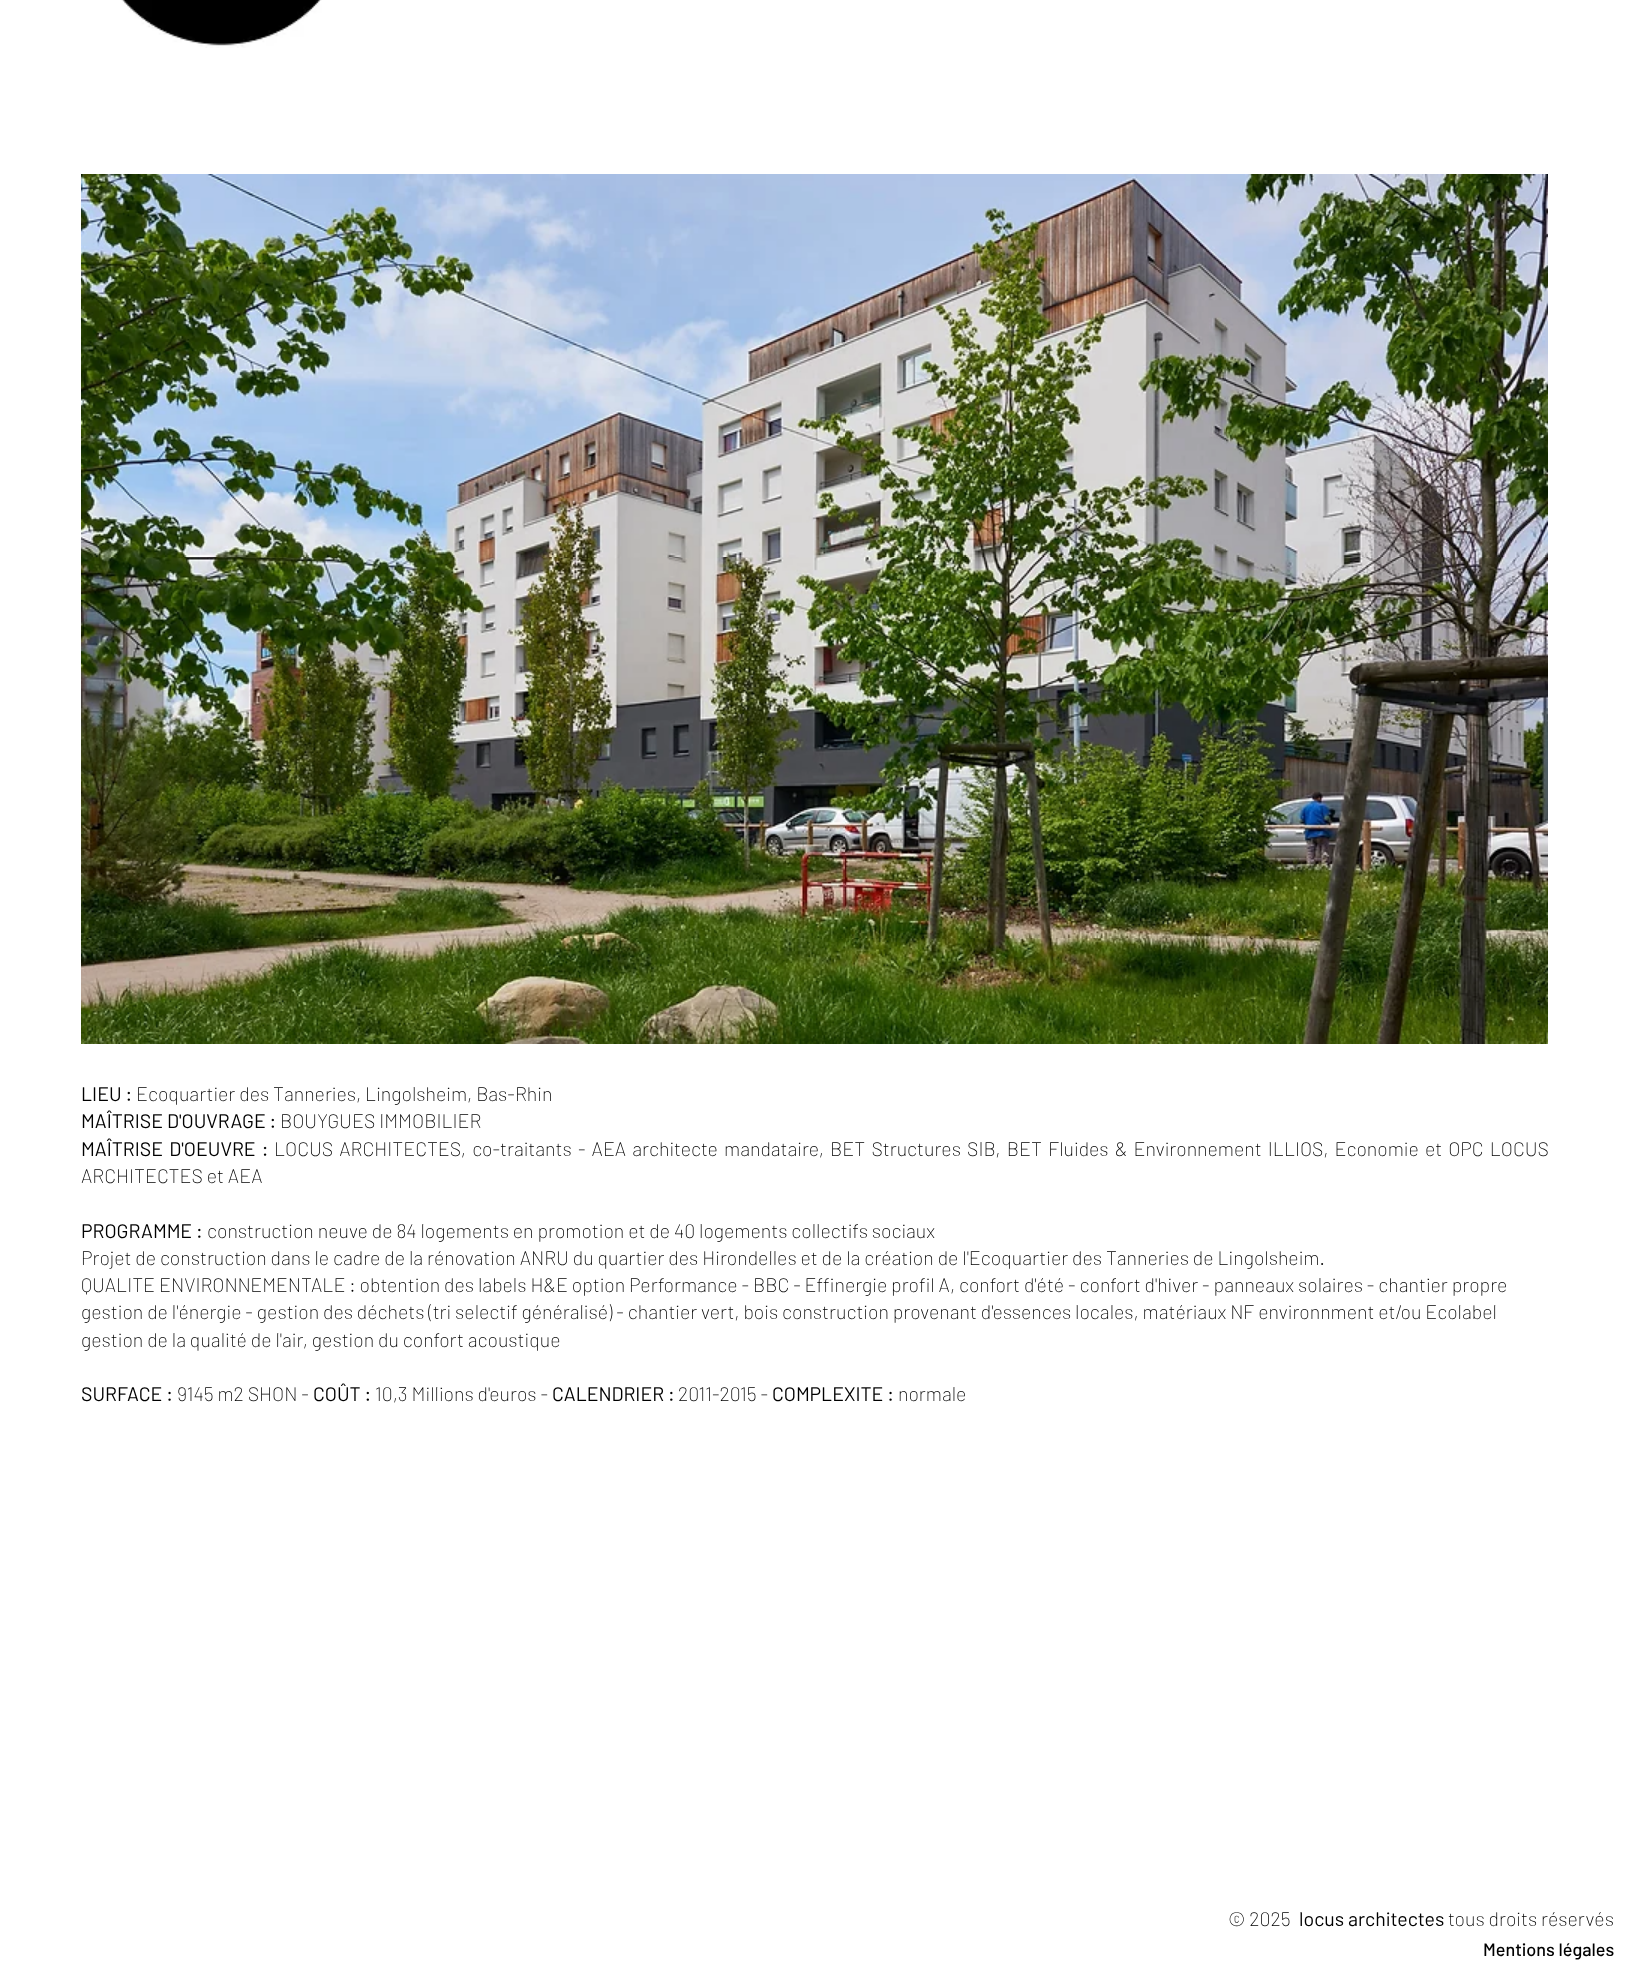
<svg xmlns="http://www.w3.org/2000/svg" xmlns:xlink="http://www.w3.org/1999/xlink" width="1631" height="1973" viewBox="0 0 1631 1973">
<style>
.cls-1{font:19.5px Barlow;fill:#000000}
.cls-2{font:200 19.5px Barlow;fill:#000000}
.cls-3{font:500 18px Barlow;fill:#000000}
</style>
<rect width="100%" height="100%" fill="#ffffff"/>
<image xlink:href="image0.png" x="121" y="0" width="201" height="48"/>
<image xlink:href="image1.png" x="81" y="174" width="1467" height="870"/>
<text class="cls-1" x="81" y="1101">LIEU :</text>
<text class="cls-2" x="136" y="1101">Ecoquartier des Tanneries, Lingolsheim, Bas-Rhin</text>
<text class="cls-1" x="81" y="1128">MAÎTRISE D'OUVRAGE :</text>
<text class="cls-2" x="280" y="1128">BOUYGUES IMMOBILIER</text>
<text class="cls-1" x="81" y="1156" word-spacing="2.25">MAÎTRISE D'OEUVRE :</text>
<text class="cls-2" x="274" y="1156" word-spacing="2.25">LOCUS ARCHITECTES, co-traitants - AEA architecte mandataire, BET Structures SIB, BET Fluides &amp; Environnement ILLIOS, Economie et OPC LOCUS</text>
<text class="cls-2" x="81" y="1183">ARCHITECTES et AEA</text>
<text class="cls-1" x="81" y="1238">PROGRAMME :</text>
<text class="cls-2" x="207" y="1238">construction neuve de 84 logements en promotion et de 40 logements collectifs sociaux</text>
<text class="cls-2"><tspan x="81" y="1265">Projet de construction dans le cadre de la rénovation ANRU du quartier des Hirondelles et de la création de l'Ecoquartier des Tanneries de Lingolsheim.</tspan><tspan x="81" y="1292">QUALITE ENVIRONNEMENTALE : obtention des labels H&amp;E option Performance - BBC - Effinergie profil A, confort d'été - confort d'hiver - panneaux solaires - chantier propre</tspan><tspan x="81" y="1319">gestion de l'énergie - gestion des déchets (tri selectif généralisé) - chantier vert, bois construction provenant d'essences locales, matériaux NF environnment et/ou Ecolabel</tspan><tspan x="81" y="1347">gestion de la qualité de l'air, gestion du confort acoustique</tspan></text>
<text class="cls-1" x="81" y="1401">SURFACE :</text>
<text class="cls-2" x="177" y="1401">9145 m2 SHON -</text>
<text class="cls-1" x="313" y="1401">COÛT :</text>
<text class="cls-2" x="375" y="1401">10,3 Millions d'euros -</text>
<text class="cls-1" x="552" y="1401">CALENDRIER :</text>
<text class="cls-2" x="678" y="1401">2011-2015 -</text>
<text class="cls-1" x="772" y="1401">COMPLEXITE :</text>
<text class="cls-2" x="898" y="1401">normale</text>
<text class="cls-2" x="1228" y="1926">© 2025</text>
<text class="cls-1" x="1299" y="1926">locus architectes</text>
<text class="cls-2" x="1448" y="1926">tous droits réservés</text>
<text class="cls-3" x="1483" y="1956">Mentions légales</text>
</svg>
